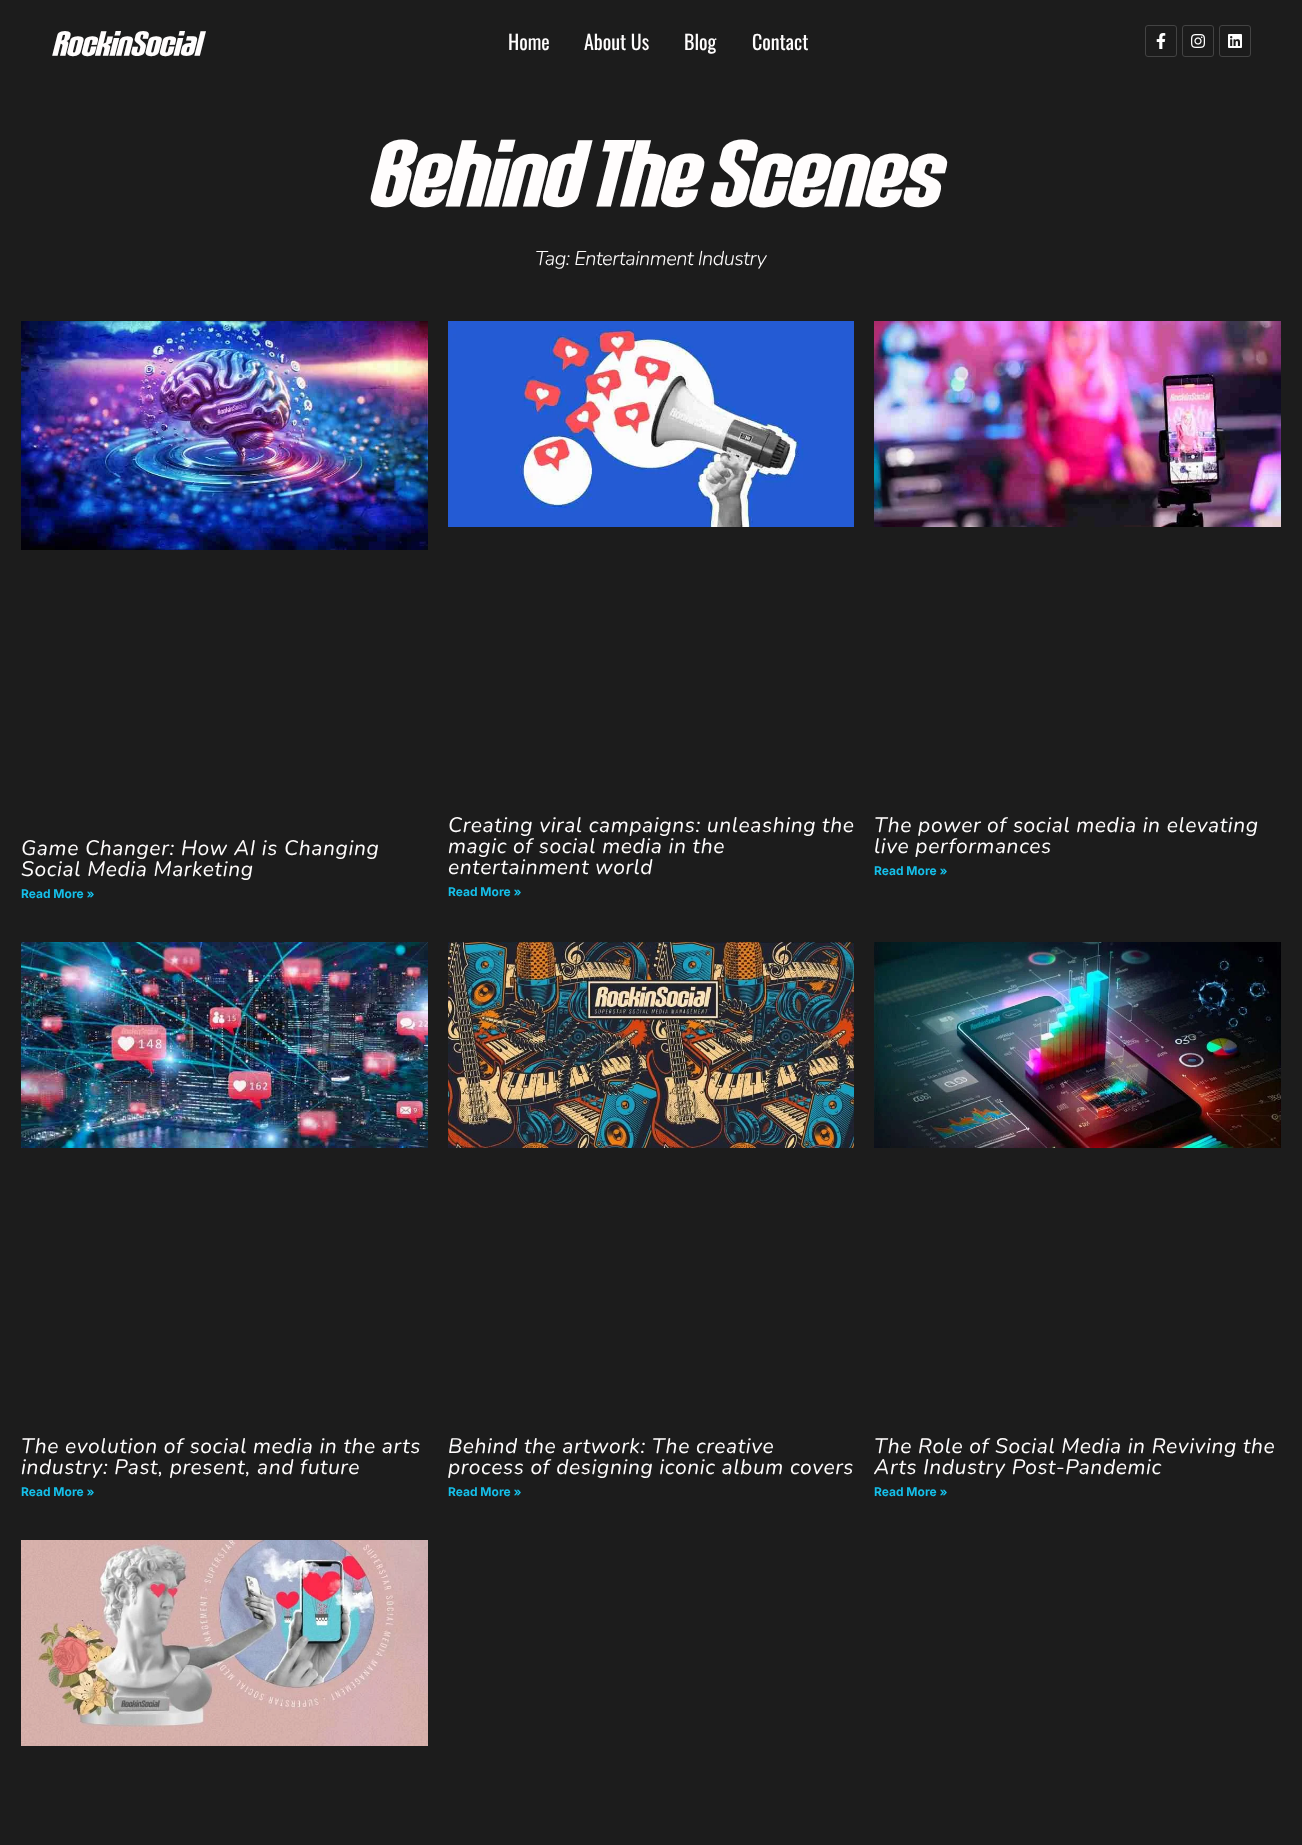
<svg xmlns="http://www.w3.org/2000/svg" xmlns:xlink="http://www.w3.org/1999/xlink" width="1302" height="1845" viewBox="0 0 1302 1845">
<style>
.cls-1{font:italic bold 26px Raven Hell;letter-spacing:-1.1px;fill:#fffdfd}
.cls-2{font:20px Oswald;fill:#fffdfd}
.cls-3{font:italic bold 70px Raven Hell;letter-spacing:-3px;fill:#fffdfd}
.cls-4{font:italic 300 20px Nunito;letter-spacing:-0.5px;fill:#fffdfd}
.cls-5{font:italic 21px Nunito;letter-spacing:0.6px;fill:#fffdfd}
.cls-6{font:bold 12px Inter;fill:#15bfe9}
</style>
<rect width="100%" height="100%" fill="#1c1c1c"/>
<rect fill="none" stroke="#434343" x="1145.5" y="25.5" width="31" height="31" rx="2.5"/>
<image xlink:href="image0.png" x="1156" y="33" width="10" height="16"/>
<rect fill="none" stroke="#434343" x="1182.5" y="25.5" width="31" height="31" rx="2.5"/>
<image xlink:href="image1.png" x="1191" y="34" width="14" height="14"/>
<rect fill="none" stroke="#434343" x="1219.5" y="25.5" width="31" height="31" rx="2.5"/>
<image xlink:href="image2.png" x="1228" y="34" width="14" height="14"/>
<image xlink:href="image3.png" x="21" y="321" width="407" height="229"/>
<image xlink:href="image4.png" x="448" y="321" width="406" height="206"/>
<image xlink:href="image5.png" x="874" y="321" width="407" height="206"/>
<image xlink:href="image6.png" x="21" y="942" width="407" height="206"/>
<image xlink:href="image7.png" x="448" y="942" width="406" height="206"/>
<image xlink:href="image8.png" x="874" y="942" width="407" height="206"/>
<image xlink:href="image9.png" x="21" y="1540" width="407" height="206"/>
<text class="cls-1" x="51" y="56">RockinSocial</text>
<text class="cls-2" x="508" y="50">Home</text>
<text class="cls-2" x="584" y="50">About Us</text>
<text class="cls-2" x="684" y="50">Blog</text>
<text class="cls-2" x="752" y="50">Contact</text>
<text class="cls-3" x="365" y="207">Behind The Scenes</text>
<text class="cls-4" x="535" y="265">Tag: Entertainment Industry</text>
<text class="cls-5"><tspan x="21" y="855">Game Changer: How AI is Changing</tspan><tspan x="21" y="876">Social Media Marketing</tspan></text>
<text class="cls-6" x="21" y="898">Read More »</text>
<text class="cls-5"><tspan x="448" y="832">Creating viral campaigns: unleashing the</tspan><tspan x="448" y="853">magic of social media in the</tspan><tspan x="448" y="874">entertainment world</tspan></text>
<text class="cls-6" x="448" y="896">Read More »</text>
<text class="cls-5"><tspan x="874" y="832">The power of social media in elevating</tspan><tspan x="874" y="853">live performances</tspan></text>
<text class="cls-6" x="874" y="875">Read More »</text>
<text class="cls-5"><tspan x="21" y="1453">The evolution of social media in the arts</tspan><tspan x="21" y="1474">industry: Past, present, and future</tspan></text>
<text class="cls-6" x="21" y="1496">Read More »</text>
<text class="cls-5"><tspan x="448" y="1453">Behind the artwork: The creative</tspan><tspan x="448" y="1474">process of designing iconic album covers</tspan></text>
<text class="cls-6" x="448" y="1496">Read More »</text>
<text class="cls-5"><tspan x="874" y="1453">The Role of Social Media in Reviving the</tspan><tspan x="874" y="1474">Arts Industry Post-Pandemic</tspan></text>
<text class="cls-6" x="874" y="1496">Read More »</text>
</svg>
